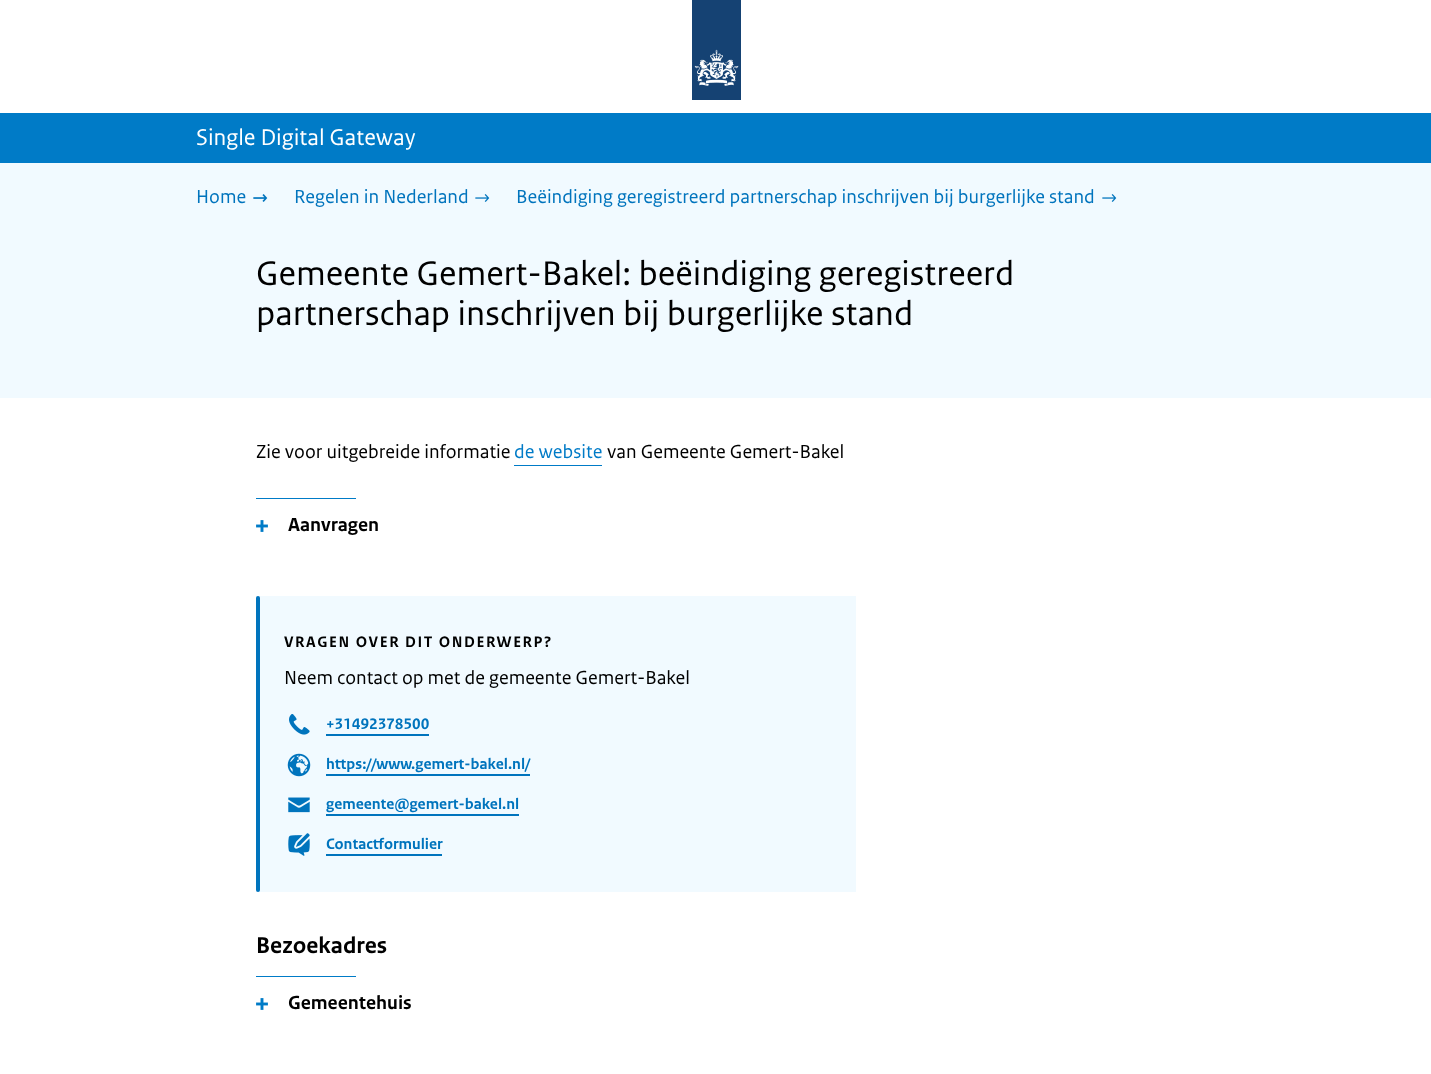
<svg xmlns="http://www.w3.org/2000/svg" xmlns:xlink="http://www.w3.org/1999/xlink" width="1431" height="1074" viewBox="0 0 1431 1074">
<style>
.cls-1{font:24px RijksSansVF;fill:#ffffff}
.cls-2{font:20px RijksSansVF;fill:#0074bd}
.cls-3{font:36px RijksSansVF;fill:#000000}
.cls-4{font:20px RijksSansVF;fill:#000000}
.cls-5{font:20px RijksSansVF;fill:#007bc7}
.cls-6{font:bold 20px RijksSansVF;fill:#000000}
.cls-7{font:bold 16px RijksSansVF;letter-spacing:1.6px;fill:#000000}
.cls-8{font:bold 16px RijksSansVF;fill:#0074bd}
.cls-9{font:bold 24px RijksSansVF;fill:#000000}
</style>
<rect width="100%" height="100%" fill="#ffffff"/>
<image xlink:href="image0.png" x="692" y="0" width="49" height="100"/>
<rect fill="#007bc7" x="0" y="113" width="1431" height="50"/>
<rect fill="#f1faff" x="0" y="163" width="1431" height="235"/>
<image xlink:href="image1.png" x="253" y="194" width="15" height="8"/>
<image xlink:href="image2.png" x="475" y="194" width="15" height="8"/>
<image xlink:href="image2.png" x="1102" y="194" width="15" height="8"/>
<rect fill="#007bc7" x="514" y="465" width="88" height="1"/>
<rect fill="#007bc7" x="256" y="498" width="100" height="1"/>
<image xlink:href="image3.png" x="256" y="520" width="12" height="12"/>
<rect fill="#f1faff" x="256" y="596" width="600" height="296"/>
<rect fill="#0074bd" x="256" y="596" width="4" height="296" rx="2"/>
<image xlink:href="image4.png" x="289" y="714" width="21" height="21"/>
<rect fill="#0074bd" x="326" y="734" width="103" height="2"/>
<image xlink:href="image5.png" x="287" y="753" width="24" height="24"/>
<rect fill="#0074bd" x="326" y="774" width="204" height="2"/>
<image xlink:href="image6.png" x="288" y="797" width="22" height="16"/>
<rect fill="#0074bd" x="326" y="814" width="193" height="2"/>
<image xlink:href="image7.png" x="288" y="833" width="22" height="23"/>
<rect fill="#0074bd" x="326" y="854" width="116" height="2"/>
<rect fill="#007bc7" x="256" y="976" width="100" height="1"/>
<image xlink:href="image3.png" x="256" y="998" width="12" height="12"/>
<text class="cls-1" x="196" y="145">Single Digital Gateway</text>
<text class="cls-2" x="196" y="203">Home</text>
<text class="cls-2" x="294" y="203">Regelen in Nederland</text>
<text class="cls-2" x="516" y="203">Beëindiging geregistreerd partnerschap inschrijven bij burgerlijke stand</text>
<text class="cls-3"><tspan x="256" y="285">Gemeente Gemert-Bakel: beëindiging geregistreerd</tspan><tspan x="256" y="325">partnerschap inschrijven bij burgerlijke stand</tspan></text>
<text class="cls-4" x="256" y="458">Zie voor uitgebreide informatie</text>
<text class="cls-5" x="514" y="458">de website</text>
<text class="cls-4" x="607" y="458">van Gemeente Gemert-Bakel</text>
<text class="cls-6" x="288" y="531">Aanvragen</text>
<text class="cls-7" x="284" y="647">VRAGEN OVER DIT ONDERWERP?</text>
<text class="cls-4" x="284" y="684">Neem contact op met de gemeente Gemert-Bakel</text>
<text class="cls-8" x="326" y="729">+31492378500</text>
<text class="cls-8" x="326" y="769">https://www.gemert-bakel.nl/</text>
<text class="cls-8" x="326" y="809">gemeente@gemert-bakel.nl</text>
<text class="cls-8" x="326" y="849">Contactformulier</text>
<text class="cls-9" x="256" y="953">Bezoekadres</text>
<text class="cls-6" x="288" y="1009">Gemeentehuis</text>
</svg>
